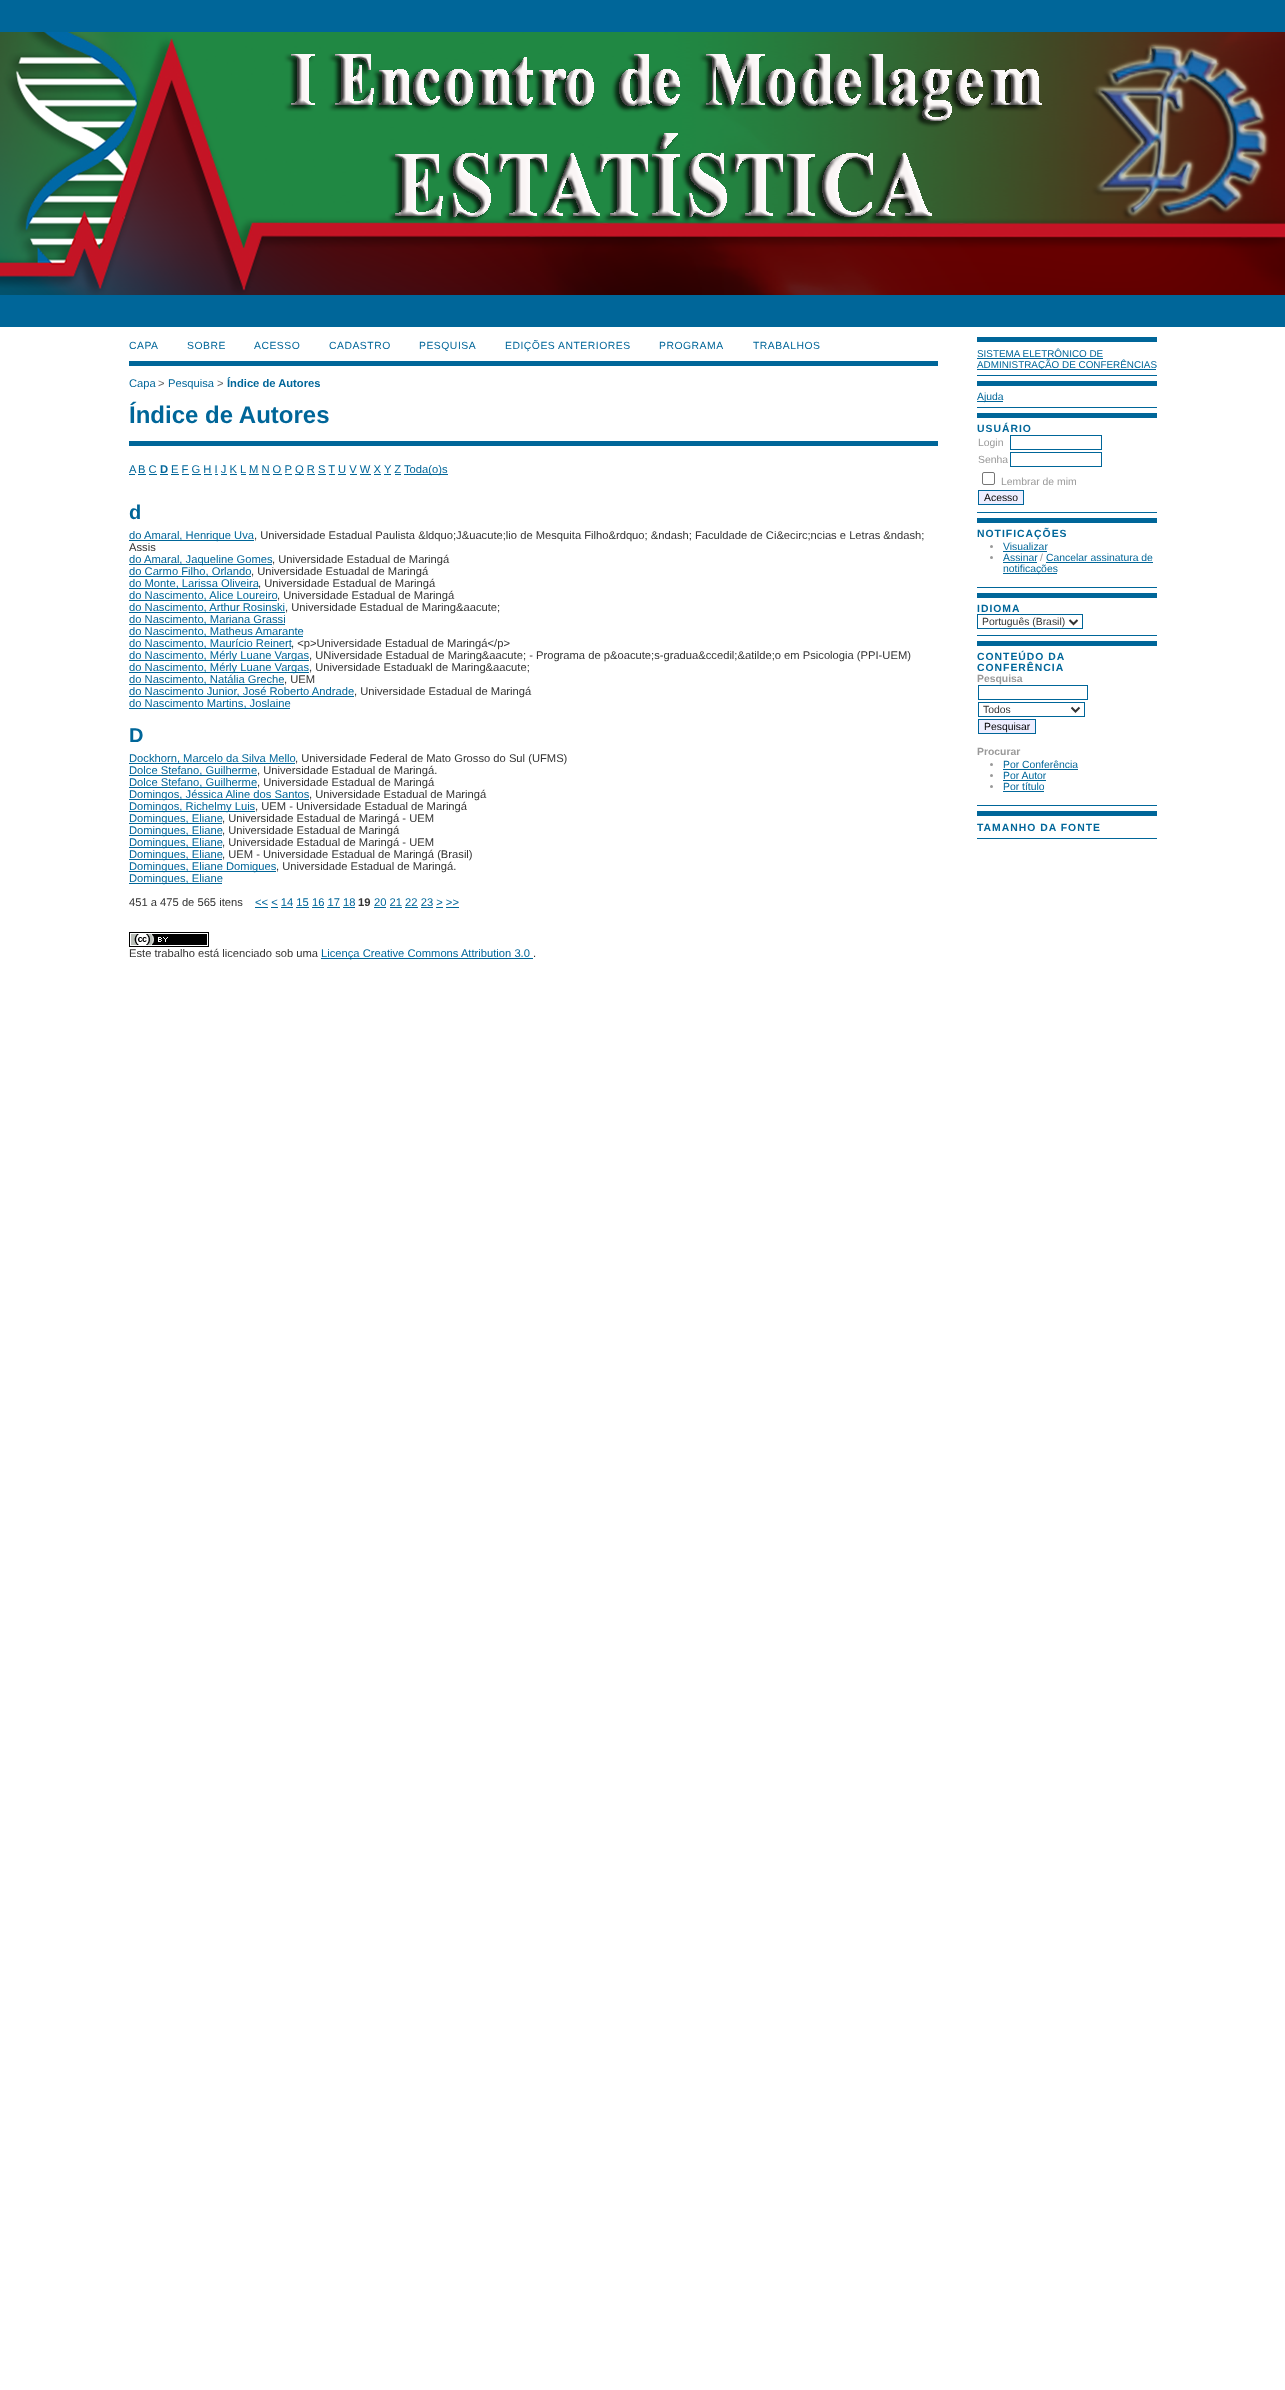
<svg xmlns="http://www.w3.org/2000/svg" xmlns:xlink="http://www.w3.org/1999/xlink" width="1285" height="2390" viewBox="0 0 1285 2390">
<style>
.cls-1{font:10.4px Liberation Sans;letter-spacing:0.5px;fill:#006699}
.cls-2{font:11.2px Liberation Sans;fill:#006699}
.cls-3{font:11.2px Liberation Sans;fill:#666666}
.cls-4{font:bold 11.2px Liberation Sans;fill:#006699}
.cls-5{font:bold 24px Liberation Sans;fill:#006699}
.cls-6{font:bold 20px Liberation Sans;fill:#006699}
.cls-7{font:11.2px Liberation Sans;fill:#333333}
.cls-8{font:bold 11.2px Liberation Sans;fill:#333333}
.cls-9{font:9.9px Liberation Sans;fill:#006699}
.cls-10{font:10.4px Liberation Sans;fill:#006699}
.cls-11{font:bold 10.4px Liberation Sans;letter-spacing:1px;fill:#006699}
.cls-12{font:10.4px Liberation Sans;fill:#999999}
.cls-13{font:10.4px Liberation Sans;fill:#000000}
.cls-14{font:10.4px Liberation Sans;fill:#333333}
.cls-15{font:bold 10.4px Liberation Sans;fill:#999999}
</style>
<rect width="100%" height="100%" fill="#ffffff"/>
<rect fill="#006699" x="0" y="0" width="1285" height="327"/>
<image xlink:href="image0.png" x="0" y="32" width="1285" height="263"/>
<rect fill="#006699" x="129" y="361" width="809" height="5"/>
<rect fill="#006699" x="129" y="441" width="809" height="5"/>
<rect fill="#006699" x="129" y="474" width="6" height="1"/>
<rect fill="#006699" x="138" y="474" width="8" height="1"/>
<rect fill="#006699" x="160" y="474" width="8" height="1"/>
<rect fill="#006699" x="171" y="474" width="8" height="1"/>
<rect fill="#006699" x="249" y="474" width="10" height="1"/>
<rect fill="#006699" x="295" y="474" width="9" height="1"/>
<rect fill="#006699" x="404" y="474" width="44" height="1"/>
<rect fill="#006699" x="149" y="474" width="8" height="1"/>
<rect fill="#006699" x="182" y="474" width="7" height="1"/>
<rect fill="#006699" x="192" y="474" width="9" height="1"/>
<rect fill="#006699" x="204" y="474" width="8" height="1"/>
<rect fill="#006699" x="215" y="474" width="3" height="1"/>
<rect fill="#006699" x="221" y="474" width="6" height="1"/>
<rect fill="#006699" x="230" y="474" width="7" height="1"/>
<rect fill="#006699" x="241" y="474" width="5" height="1"/>
<rect fill="#006699" x="262" y="474" width="8" height="1"/>
<rect fill="#006699" x="273" y="474" width="9" height="1"/>
<rect fill="#006699" x="285" y="474" width="7" height="1"/>
<rect fill="#006699" x="307" y="474" width="8" height="1"/>
<rect fill="#006699" x="318" y="474" width="8" height="1"/>
<rect fill="#006699" x="329" y="474" width="6" height="1"/>
<rect fill="#006699" x="338" y="474" width="8" height="1"/>
<rect fill="#006699" x="350" y="474" width="7" height="1"/>
<rect fill="#006699" x="360" y="474" width="11" height="1"/>
<rect fill="#006699" x="374" y="474" width="7" height="1"/>
<rect fill="#006699" x="384" y="474" width="7" height="1"/>
<rect fill="#006699" x="395" y="474" width="6" height="1"/>
<rect fill="#006699" x="129" y="540" width="125" height="1"/>
<rect fill="#006699" x="129" y="564" width="143" height="1"/>
<rect fill="#006699" x="129" y="576" width="122" height="1"/>
<rect fill="#006699" x="129" y="588" width="129" height="1"/>
<rect fill="#006699" x="129" y="600" width="148" height="1"/>
<rect fill="#006699" x="129" y="612" width="156" height="1"/>
<rect fill="#006699" x="129" y="624" width="156" height="1"/>
<rect fill="#006699" x="129" y="636" width="174" height="1"/>
<rect fill="#006699" x="129" y="648" width="162" height="1"/>
<rect fill="#006699" x="129" y="660" width="180" height="1"/>
<rect fill="#006699" x="129" y="672" width="180" height="1"/>
<rect fill="#006699" x="129" y="684" width="155" height="1"/>
<rect fill="#006699" x="129" y="696" width="225" height="1"/>
<rect fill="#006699" x="129" y="708" width="161" height="1"/>
<rect fill="#006699" x="129" y="763" width="166" height="1"/>
<rect fill="#006699" x="129" y="775" width="128" height="1"/>
<rect fill="#006699" x="129" y="787" width="128" height="1"/>
<rect fill="#006699" x="129" y="799" width="180" height="1"/>
<rect fill="#006699" x="129" y="811" width="126" height="1"/>
<rect fill="#006699" x="129" y="823" width="93" height="1"/>
<rect fill="#006699" x="129" y="835" width="93" height="1"/>
<rect fill="#006699" x="129" y="847" width="93" height="1"/>
<rect fill="#006699" x="129" y="859" width="93" height="1"/>
<rect fill="#006699" x="129" y="871" width="147" height="1"/>
<rect fill="#006699" x="129" y="883" width="93" height="1"/>
<rect fill="#006699" x="255" y="907" width="13" height="1"/>
<rect fill="#006699" x="374" y="907" width="12" height="1"/>
<rect fill="#006699" x="271" y="907" width="7" height="1"/>
<rect fill="#006699" x="281" y="907" width="12" height="1"/>
<rect fill="#006699" x="296" y="907" width="13" height="1"/>
<rect fill="#006699" x="312" y="907" width="12" height="1"/>
<rect fill="#006699" x="327" y="907" width="13" height="1"/>
<rect fill="#006699" x="343" y="907" width="12" height="1"/>
<rect fill="#006699" x="390" y="907" width="12" height="1"/>
<rect fill="#006699" x="405" y="907" width="13" height="1"/>
<rect fill="#006699" x="421" y="907" width="12" height="1"/>
<rect fill="#006699" x="436" y="907" width="7" height="1"/>
<rect fill="#006699" x="446" y="907" width="13" height="1"/>
<image xlink:href="image1.png" x="129" y="932" width="80" height="15"/>
<rect fill="#006699" x="321" y="958" width="212" height="1"/>
<rect fill="#006699" x="977" y="337" width="180" height="5"/>
<rect fill="#006699" x="977" y="375" width="180" height="1"/>
<rect fill="#006699" x="977" y="358" width="126" height="1"/>
<rect fill="#006699" x="977" y="369" width="179" height="1"/>
<rect fill="#006699" x="977" y="381" width="180" height="5"/>
<rect fill="#006699" x="977" y="407" width="180" height="1"/>
<rect fill="#006699" x="977" y="401" width="26" height="1"/>
<rect fill="#006699" x="977" y="413" width="180" height="5"/>
<rect fill="#006699" x="977" y="512" width="180" height="1"/>
<rect fill="none" stroke="#006699" x="1010.5" y="435.5" width="91" height="14"/>
<rect fill="none" stroke="#006699" x="1010.5" y="452.5" width="91" height="14"/>
<rect fill="none" stroke="#767676" x="982.5" y="472.5" width="12" height="12" rx="1.5"/>
<rect fill="#eeeeff" stroke="#006699" x="978.5" y="490.5" width="45" height="14"/>
<rect fill="#006699" x="977" y="518" width="180" height="5"/>
<rect fill="#006699" x="977" y="587" width="180" height="1"/>
<circle fill="#999999" cx="991.5" cy="546.5" r="1.5"/>
<rect fill="#006699" x="1003" y="551" width="44" height="1"/>
<circle fill="#999999" cx="991.5" cy="557.5" r="1.5"/>
<rect fill="#006699" x="1003" y="562" width="34" height="1"/>
<rect fill="#006699" x="1046" y="562" width="107" height="1"/>
<rect fill="#006699" x="1003" y="573" width="54" height="1"/>
<rect fill="#006699" x="977" y="593" width="180" height="5"/>
<rect fill="#006699" x="977" y="635" width="180" height="1"/>
<rect fill="none" stroke="#006699" x="977.5" y="614.5" width="105" height="14"/>
<path fill="none" stroke="#333333" stroke-width="2" d="M1069.5 620L1073.5 624L1077.5 620"/>
<rect fill="#006699" x="977" y="641" width="180" height="5"/>
<rect fill="#006699" x="977" y="805" width="180" height="1"/>
<rect fill="none" stroke="#006699" x="978.5" y="685.5" width="109" height="14"/>
<rect fill="none" stroke="#006699" x="978.5" y="702.5" width="106" height="14"/>
<path fill="none" stroke="#333333" stroke-width="2" d="M1071.5 707.5L1075.5 711.5L1079.5 707.5"/>
<rect fill="#eeeeff" stroke="#006699" x="978.5" y="719.5" width="57" height="14"/>
<circle fill="#999999" cx="991.5" cy="764.5" r="1.5"/>
<rect fill="#006699" x="1003" y="769" width="75" height="1"/>
<circle fill="#999999" cx="991.5" cy="775.5" r="1.5"/>
<rect fill="#006699" x="1003" y="780" width="43" height="1"/>
<circle fill="#999999" cx="991.5" cy="786.5" r="1.5"/>
<rect fill="#006699" x="1003" y="791" width="41" height="1"/>
<rect fill="#006699" x="977" y="811" width="180" height="5"/>
<rect fill="#006699" x="977" y="838" width="180" height="1"/>
<text class="cls-1" x="129" y="349">CAPA</text>
<text class="cls-1" x="187" y="349">SOBRE</text>
<text class="cls-1" x="254" y="349">ACESSO</text>
<text class="cls-1" x="329" y="349">CADASTRO</text>
<text class="cls-1" x="419" y="349">PESQUISA</text>
<text class="cls-1" x="505" y="349">EDIÇÕES ANTERIORES</text>
<text class="cls-1" x="659" y="349">PROGRAMA</text>
<text class="cls-1" x="753" y="349">TRABALHOS</text>
<text class="cls-2" x="129" y="387">Capa</text>
<text class="cls-3" x="158" y="387">&gt;</text>
<text class="cls-2" x="168" y="387">Pesquisa</text>
<text class="cls-3" x="217" y="387">&gt;</text>
<text class="cls-4" x="227" y="387">Índice de Autores</text>
<text class="cls-5" x="129" y="423">Índice de Autores</text>
<text class="cls-2" x="129" y="473">A</text>
<text class="cls-2" x="138" y="473">B C</text>
<text class="cls-4" x="160" y="473">D</text>
<text class="cls-2" x="171" y="473">E F G H I J K L</text>
<text class="cls-2" x="249" y="473">M N O P</text>
<text class="cls-2" x="295" y="473">Q R S T U V W X Y Z</text>
<text class="cls-2" x="404" y="473">Toda(o)s</text>
<text class="cls-6" x="129" y="519">d</text>
<text class="cls-2" x="129" y="539">do Amaral, Henrique Uva</text>
<text class="cls-7" x="254" y="539">, Universidade Estadual Paulista &amp;ldquo;J&amp;uacute;lio de Mesquita Filho&amp;rdquo; &amp;ndash; Faculdade de Ci&amp;ecirc;ncias e Letras &amp;ndash;</text>
<text class="cls-7" x="129" y="551">Assis</text>
<text class="cls-2" x="129" y="563">do Amaral, Jaqueline Gomes</text>
<text class="cls-7" x="272" y="563">, Universidade Estadual de Maringá</text>
<text class="cls-2" x="129" y="575">do Carmo Filho, Orlando</text>
<text class="cls-7" x="251" y="575">, Universidade Estuadal de Maringá</text>
<text class="cls-2" x="129" y="587">do Monte, Larissa Oliveira</text>
<text class="cls-7" x="258" y="587">, Universidade Estadual de Maringá</text>
<text class="cls-2" x="129" y="599">do Nascimento, Alice Loureiro</text>
<text class="cls-7" x="277" y="599">, Universidade Estadual de Maringá</text>
<text class="cls-2" x="129" y="611">do Nascimento, Arthur Rosinski</text>
<text class="cls-7" x="285" y="611">, Universidade Estadual de Maring&amp;aacute;</text>
<text class="cls-2"><tspan x="129" y="623">do Nascimento, Mariana Grassi</tspan><tspan x="129" y="635">do Nascimento, Matheus Amarante</tspan><tspan x="129" y="647">do Nascimento, Maurício Reinert</tspan></text>
<text class="cls-7" x="291" y="647">, &lt;p&gt;Universidade Estadual de Maringá&lt;/p&gt;</text>
<text class="cls-2" x="129" y="659">do Nascimento, Mérly Luane Vargas</text>
<text class="cls-7" x="309" y="659">, UNiversidade Estadual de Maring&amp;aacute; - Programa de p&amp;oacute;s-gradua&amp;ccedil;&amp;atilde;o em Psicologia (PPI-UEM)</text>
<text class="cls-2" x="129" y="671">do Nascimento, Mérly Luane Vargas</text>
<text class="cls-7" x="309" y="671">, Universidade Estaduakl de Maring&amp;aacute;</text>
<text class="cls-2" x="129" y="683">do Nascimento, Natália Greche</text>
<text class="cls-7" x="284" y="683">, UEM</text>
<text class="cls-2" x="129" y="695">do Nascimento Junior, José Roberto Andrade</text>
<text class="cls-7" x="354" y="695">, Universidade Estadual de Maringá</text>
<text class="cls-2" x="129" y="707">do Nascimento Martins, Joslaine</text>
<text class="cls-6" x="129" y="742">D</text>
<text class="cls-2" x="129" y="762">Dockhorn, Marcelo da Silva Mello</text>
<text class="cls-7" x="295" y="762">, Universidade Federal de Mato Grosso do Sul (UFMS)</text>
<text class="cls-2" x="129" y="774">Dolce Stefano, Guilherme</text>
<text class="cls-7" x="257" y="774">, Universidade Estadual de Maringá.</text>
<text class="cls-2" x="129" y="786">Dolce Stefano, Guilherme</text>
<text class="cls-7" x="257" y="786">, Universidade Estadual de Maringá</text>
<text class="cls-2" x="129" y="798">Domingos, Jéssica Aline dos Santos</text>
<text class="cls-7" x="309" y="798">, Universidade Estadual de Maringá</text>
<text class="cls-2" x="129" y="810">Domingos, Richelmy Luis</text>
<text class="cls-7" x="255" y="810">, UEM - Universidade Estadual de Maringá</text>
<text class="cls-2" x="129" y="822">Domingues, Eliane</text>
<text class="cls-7" x="222" y="822">, Universidade Estadual de Maringá - UEM</text>
<text class="cls-2" x="129" y="834">Domingues, Eliane</text>
<text class="cls-7" x="222" y="834">, Universidade Estadual de Maringá</text>
<text class="cls-2" x="129" y="846">Domingues, Eliane</text>
<text class="cls-7" x="222" y="846">, Universidade Estadual de Maringá - UEM</text>
<text class="cls-2" x="129" y="858">Domingues, Eliane</text>
<text class="cls-7" x="222" y="858">, UEM - Universidade Estadual de Maringá (Brasil)</text>
<text class="cls-2" x="129" y="870">Domingues, Eliane Domigues</text>
<text class="cls-7" x="276" y="870">, Universidade Estadual de Maringá.</text>
<text class="cls-2" x="129" y="882">Domingues, Eliane</text>
<text class="cls-7" x="129" y="906">451 a 475 de 565 itens</text>
<text class="cls-2" x="255" y="906">&lt;&lt; &lt; 14 15 16 17 18</text>
<text class="cls-8" x="358" y="906">19</text>
<text class="cls-2" x="374" y="906">20 21 22 23 &gt; &gt;&gt;</text>
<text class="cls-7" x="129" y="957">Este trabalho está licenciado sob uma</text>
<text class="cls-2" x="321" y="957">Licença Creative Commons Attribution 3.0</text>
<text class="cls-7" x="533" y="957">.</text>
<text class="cls-9"><tspan x="977" y="357">SISTEMA ELETRÔNICO DE</tspan><tspan x="977" y="368">ADMINISTRAÇÃO DE CONFERÊNCIAS</tspan></text>
<text class="cls-10" x="977" y="400">Ajuda</text>
<text class="cls-11" x="977" y="432">USUÁRIO</text>
<text class="cls-12"><tspan x="978" y="446">Login</tspan><tspan x="978" y="463">Senha</tspan></text>
<text class="cls-12" x="1001" y="485">Lembrar de mim</text>
<text class="cls-13" x="984" y="501">Acesso</text>
<text class="cls-11" x="977" y="537">NOTIFICAÇÕES</text>
<text class="cls-10"><tspan x="1003" y="550">Visualizar</tspan><tspan x="1003" y="561">Assinar</tspan></text>
<text class="cls-12" x="1040" y="561">/</text>
<text class="cls-10" x="1046" y="561">Cancelar assinatura de</text>
<text class="cls-10" x="1003" y="572">notificações</text>
<text class="cls-11" x="977" y="612">IDIOMA</text>
<text class="cls-14" x="982" y="625">Português (Brasil)</text>
<text class="cls-11"><tspan x="977" y="660">CONTEÚDO DA</tspan><tspan x="977" y="671">CONFERÊNCIA</tspan></text>
<text class="cls-15" x="977" y="682">Pesquisa</text>
<text class="cls-14" x="983" y="713">Todos</text>
<text class="cls-13" x="984" y="730">Pesquisar</text>
<text class="cls-15" x="977" y="755">Procurar</text>
<text class="cls-10"><tspan x="1003" y="768">Por Conferência</tspan><tspan x="1003" y="779">Por Autor</tspan><tspan x="1003" y="790">Por título</tspan></text>
<text class="cls-11" x="977" y="831">TAMANHO DA FONTE</text>
</svg>
